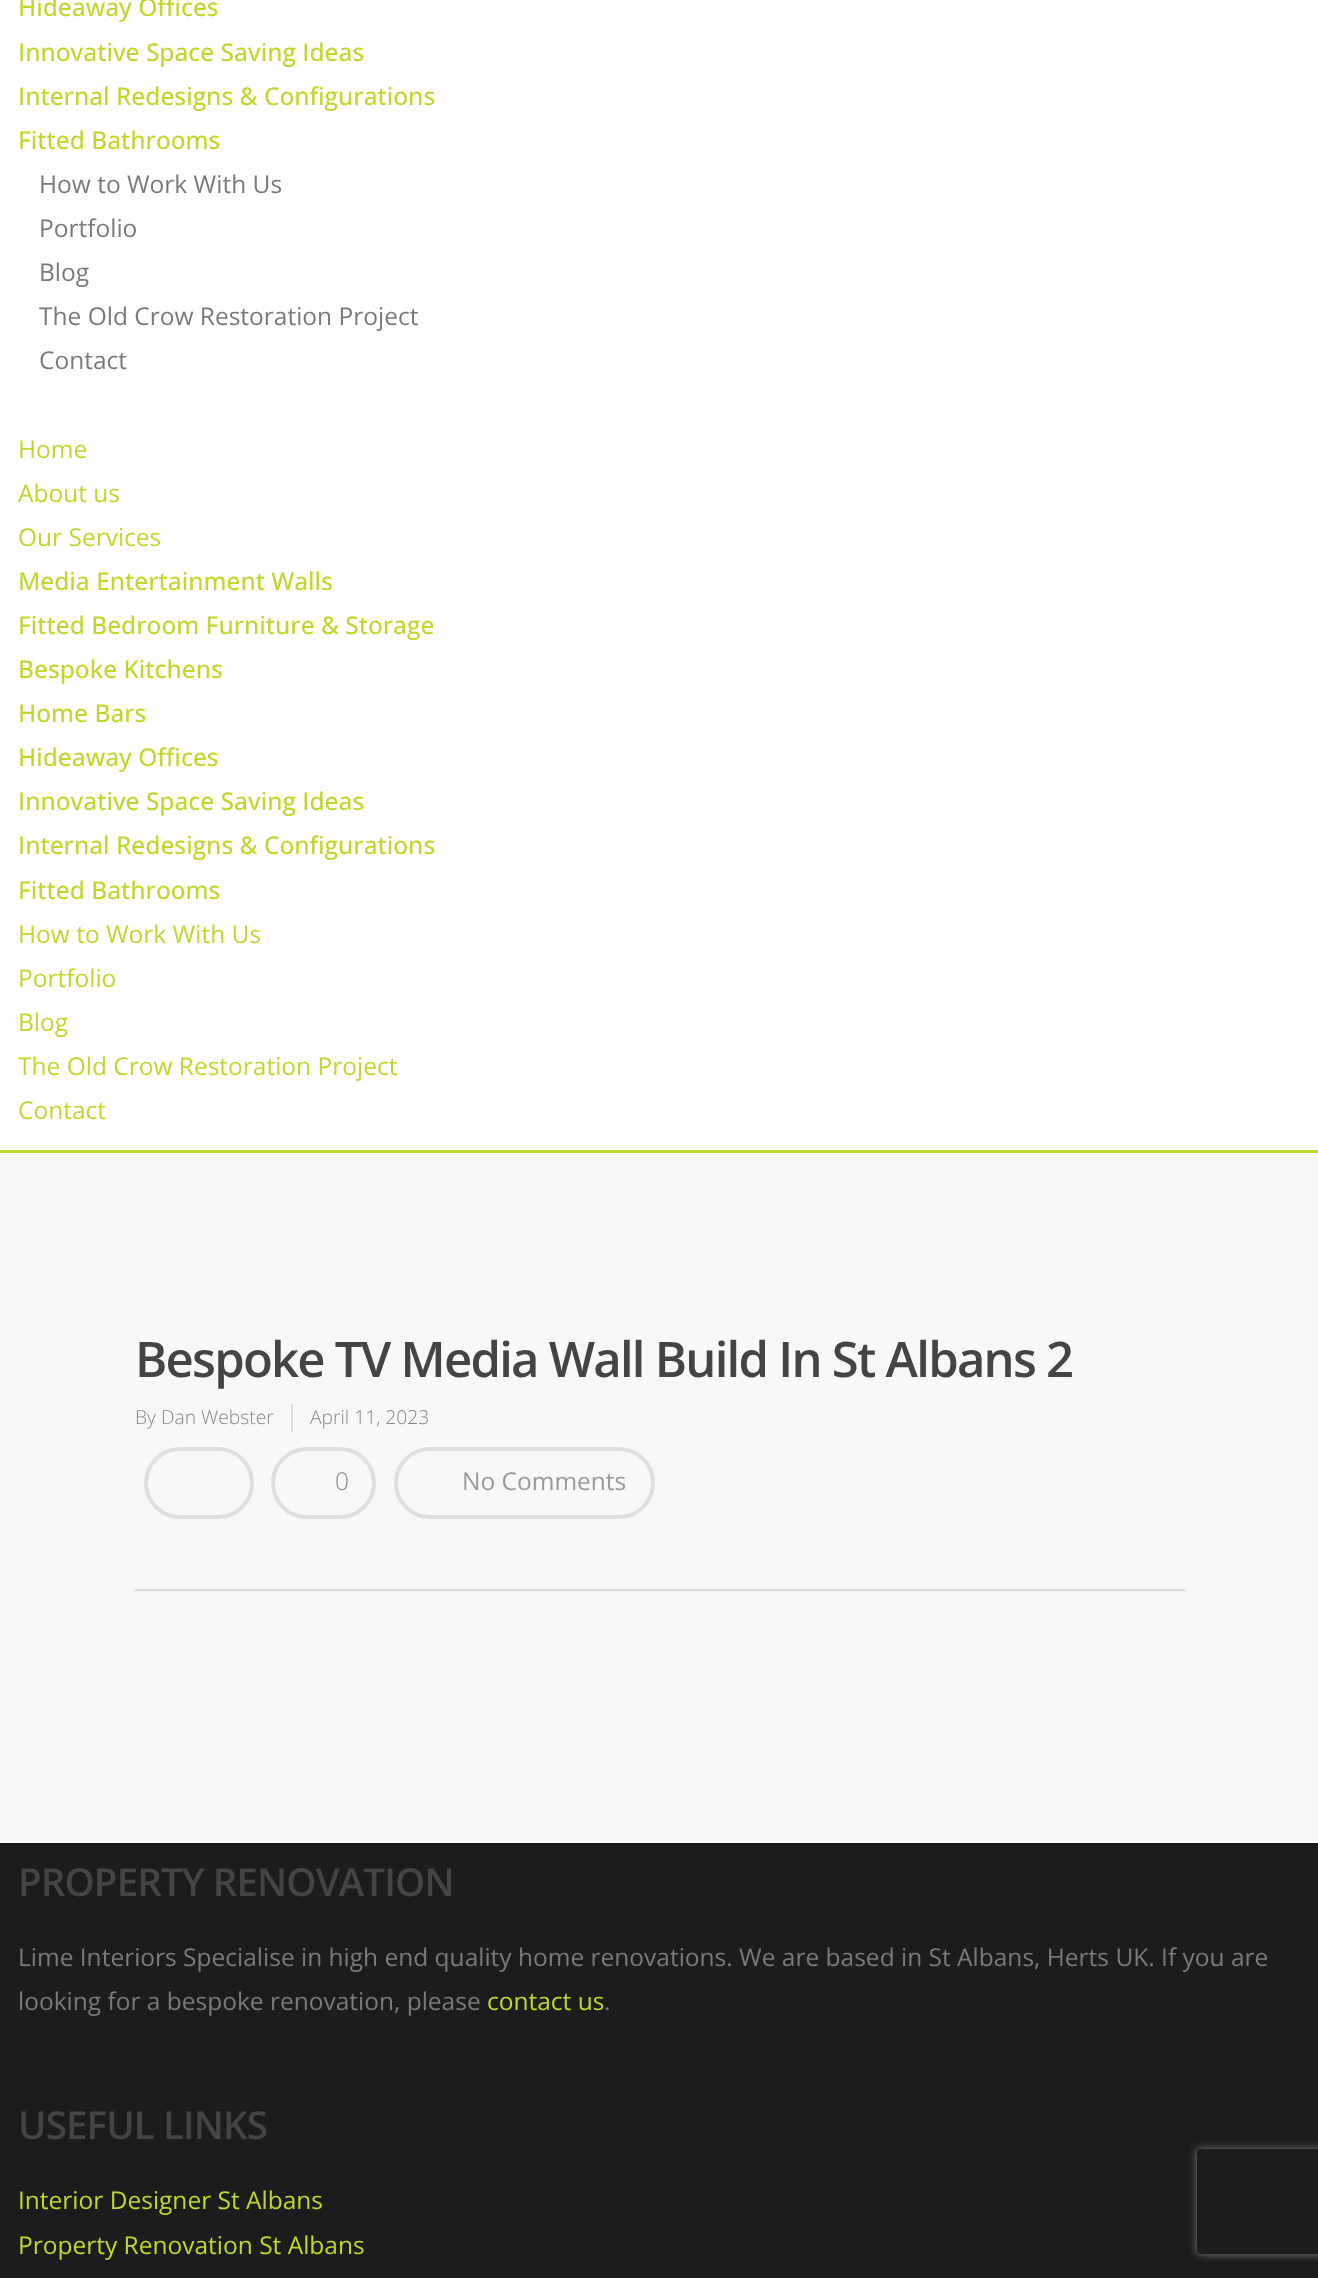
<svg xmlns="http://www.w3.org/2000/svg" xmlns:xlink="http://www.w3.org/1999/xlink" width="1318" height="2278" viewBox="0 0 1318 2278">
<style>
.cls-1{font:500 24.5px Open Sans;fill:#c1d72e}
.cls-2{font:24.5px Open Sans;fill:#7a7a7a}
.cls-3{font:24.5px Open Sans;fill:#c1d72e}
.cls-4{font:600 49px Open Sans;letter-spacing:-1.75px;fill:#444444}
.cls-5{font:300 19.25px Open Sans;fill:#888888}
.cls-6{font:300 24.5px Open Sans;fill:#888888}
.cls-7{font:24.5px Open Sans;fill:#999999}
.cls-8{font:600 38.5px Open Sans;letter-spacing:-0.9px;fill:#444444}
</style>
<defs>
<clipPath id="clip1"><path d="M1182 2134H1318V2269H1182ZM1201 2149H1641C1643 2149 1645 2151 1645 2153V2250C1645 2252 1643 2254 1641 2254H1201C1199 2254 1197 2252 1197 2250V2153C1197 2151 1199 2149 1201 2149Z" clip-rule="evenodd"/></clipPath>
</defs>
<rect width="100%" height="100%" fill="#1c1c1c"/>
<rect fill="#ffffff" x="0" y="0" width="1318" height="1150"/>
<rect fill="#c1d72e" x="0" y="1150" width="1318" height="3"/>
<rect fill="#f8f8f8" x="0" y="1153" width="1318" height="690"/>
<rect fill="#dddddd" x="135" y="1589" width="1050" height="2"/>
<rect fill="#dddddd" x="291" y="1404" width="2" height="28"/>
<rect fill="none" stroke="#dfdfdf" stroke-width="4" x="146" y="1449" width="106" height="68" rx="34"/>
<rect fill="none" stroke="#dfdfdf" stroke-width="4" x="273" y="1449" width="101" height="68" rx="34"/>
<rect fill="none" stroke="#dfdfdf" stroke-width="4" x="396" y="1449" width="257" height="68" rx="34"/>
<g clip-path="url(#clip1)">
<rect fill="#808080" filter="blur(4.5px)" x="1197" y="2149" width="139" height="105" rx="4"/>
</g>
<text class="cls-1"><tspan x="18" y="16">Hideaway Offices</tspan><tspan x="18" y="61">Innovative Space Saving Ideas</tspan><tspan x="18" y="105">Internal Redesigns &amp; Configurations</tspan><tspan x="18" y="149">Fitted Bathrooms</tspan></text>
<text class="cls-2"><tspan x="39" y="193">How to Work With Us</tspan><tspan x="39" y="237">Portfolio</tspan><tspan x="39" y="281">Blog</tspan><tspan x="39" y="325">The Old Crow Restoration Project</tspan><tspan x="39" y="369">Contact</tspan></text>
<text class="cls-3"><tspan x="18" y="458">Home</tspan><tspan x="18" y="502">About us</tspan><tspan x="18" y="546">Our Services</tspan></text>
<text class="cls-1"><tspan x="18" y="590">Media Entertainment Walls</tspan><tspan x="18" y="634">Fitted Bedroom Furniture &amp; Storage</tspan><tspan x="18" y="678">Bespoke Kitchens</tspan><tspan x="18" y="722">Home Bars</tspan><tspan x="18" y="766">Hideaway Offices</tspan><tspan x="18" y="810">Innovative Space Saving Ideas</tspan><tspan x="18" y="854">Internal Redesigns &amp; Configurations</tspan><tspan x="18" y="899">Fitted Bathrooms</tspan></text>
<text class="cls-3"><tspan x="18" y="943">How to Work With Us</tspan><tspan x="18" y="987">Portfolio</tspan><tspan x="18" y="1031">Blog</tspan><tspan x="18" y="1075">The Old Crow Restoration Project</tspan><tspan x="18" y="1119">Contact</tspan></text>
<text class="cls-4" x="135" y="1377">Bespoke TV Media Wall Build In St Albans 2</text>
<text class="cls-5" x="135" y="1424">By Dan Webster</text>
<text class="cls-5" x="310" y="1424">April 11, 2023</text>
<text class="cls-6" x="335" y="1490">0</text>
<text class="cls-7" x="462" y="1490">No Comments</text>
<text class="cls-8" x="18" y="1896">PROPERTY RENOVATION</text>
<text class="cls-2"><tspan x="18" y="1966">Lime Interiors Specialise in high end quality home renovations. We are based in St Albans, Herts UK. If you are</tspan><tspan x="18" y="2010">looking for a bespoke renovation, please</tspan></text>
<text class="cls-3" x="487" y="2010">contact us</text>
<text class="cls-2" x="604" y="2010">.</text>
<text class="cls-8" x="18" y="2139">USEFUL LINKS</text>
<text class="cls-3"><tspan x="18" y="2209">Interior Designer St Albans</tspan><tspan x="18" y="2254">Property Renovation St Albans</tspan></text>
</svg>
